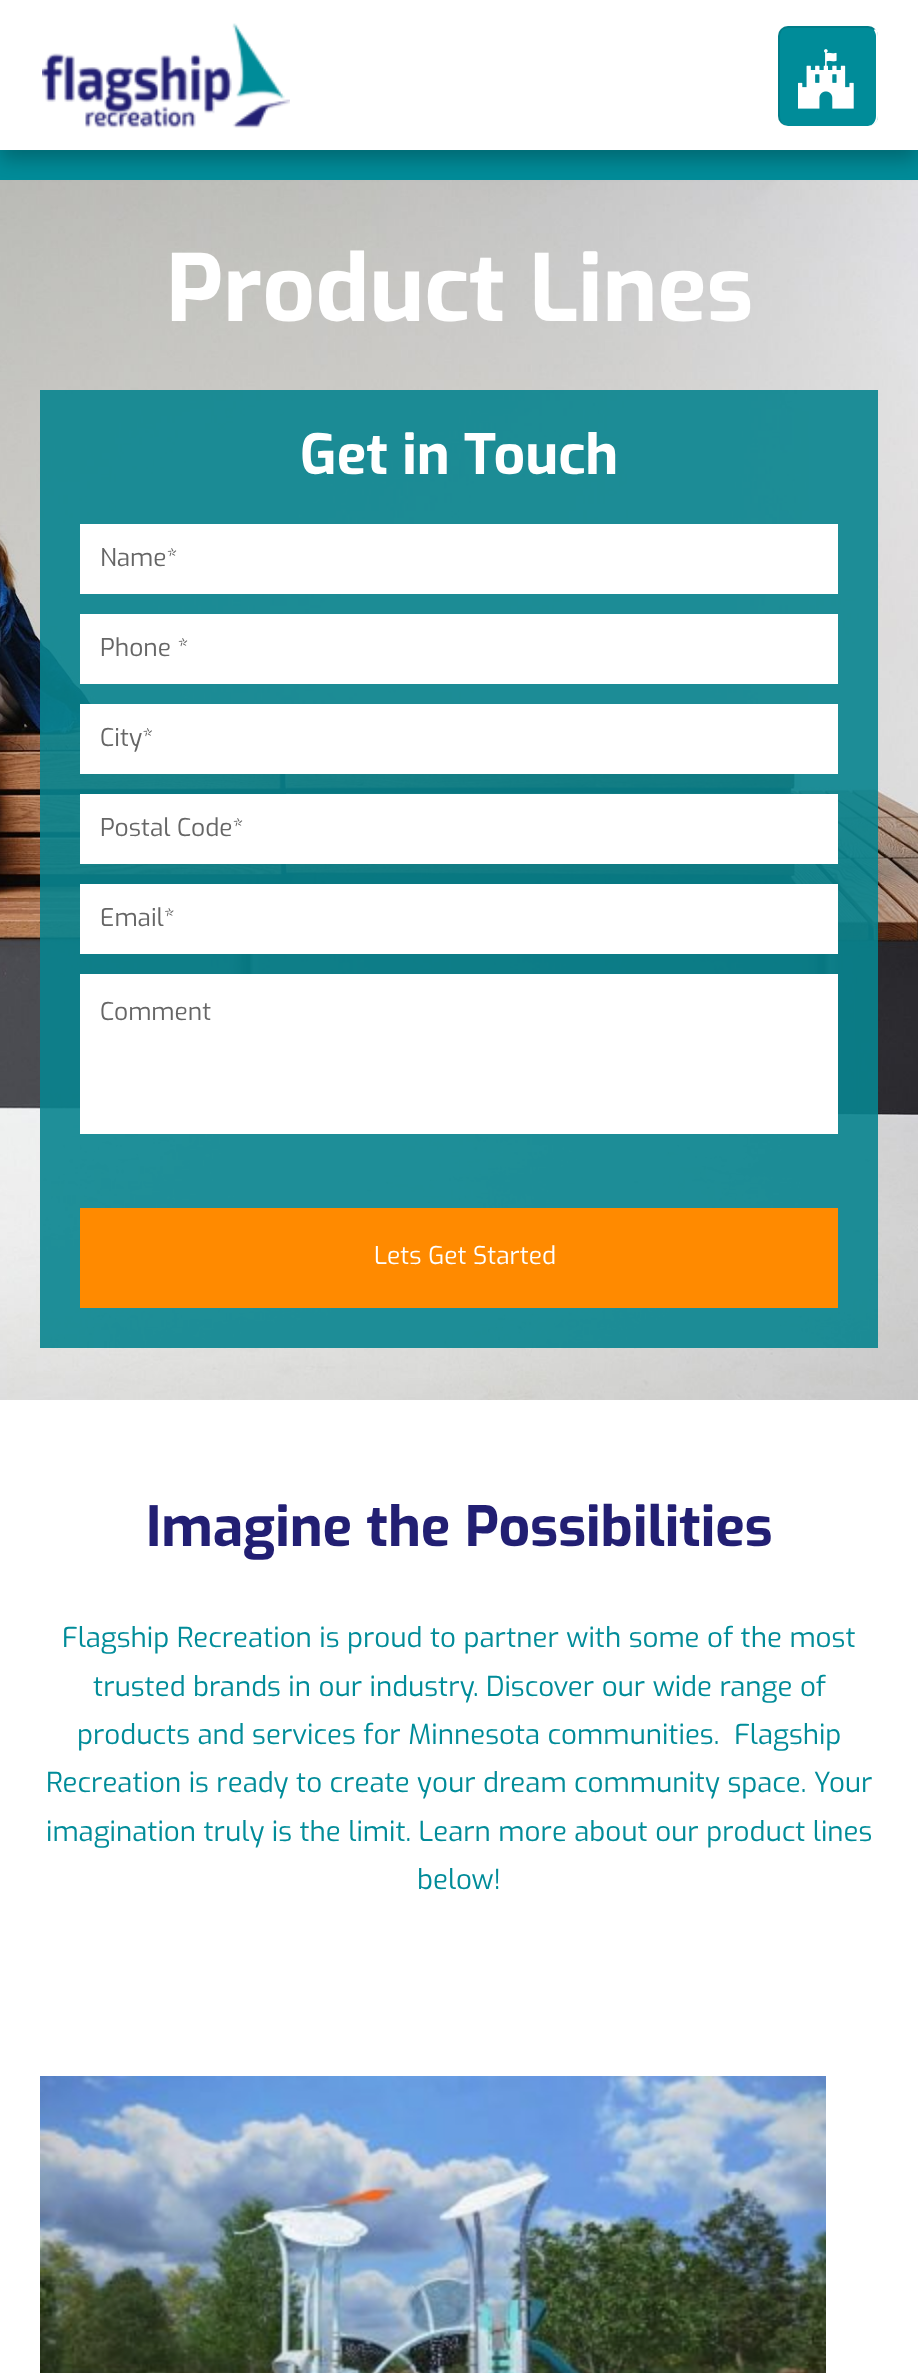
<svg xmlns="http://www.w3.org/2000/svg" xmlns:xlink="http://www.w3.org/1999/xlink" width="918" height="2373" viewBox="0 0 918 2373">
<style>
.cls-1{font:bold 92.25px Exo;fill:#ffffff}
.cls-2{font:bold 55.25px Exo;fill:#ffffff}
.cls-3{font:24.5px Exo;fill:#666666}
.cls-4{font:24.5px Exo;fill:#ffffff}
.cls-5{font:bold 55.25px Exo;fill:#221f73}
.cls-6{font:27.65px Exo;fill:#008c99}
</style>
<rect width="100%" height="100%" fill="#ffffff"/>
<rect fill="#008c99" x="0" y="150" width="918" height="30"/>
<image xlink:href="image2.png" x="0" y="180" width="918" height="1220"/>
<rect fill="#000000" fill-opacity="0.25" filter="blur(10px)" x="0" y="10" width="918" height="150"/>
<rect fill="#ffffff" x="0" y="0" width="918" height="150"/>
<image xlink:href="image0.png" x="42" y="23" width="248" height="105"/>
<rect fill="#008c99" x="778" y="26" width="100" height="100" rx="10"/>
<path fill="#000000" fill-opacity="0.1" d="M788 26C785 26 782 27 781 29L782 30C784 29 786 28 788 28H868C870 28 872 29 874 30L875 29C874 27 871 26 868 26Z"/>
<path fill="#ffffff" d="M878 116V36C878 33 877 30 875 29L874 30C875 32 876 34 876 36V116C876 122 872 126 868 126C874 126 878 122 878 116Z"/>
<path fill="#000000" fill-opacity="0.1" d="M778 36V116C778 122 782 126 788 126C784 126 780 122 780 116V36C780 34 781 32 782 30L781 29C779 30 778 33 778 36Z"/>
<image xlink:href="image1.png" x="798" y="49" width="56" height="60"/>
<rect fill="#08848f" fill-opacity="0.9" x="40" y="390" width="838" height="958"/>
<rect fill="#ffffff" x="80" y="524" width="758" height="70"/>
<rect fill="#ffffff" x="80" y="614" width="758" height="70"/>
<rect fill="#ffffff" x="80" y="704" width="758" height="70"/>
<rect fill="#ffffff" x="80" y="794" width="758" height="70"/>
<rect fill="#ffffff" x="80" y="884" width="758" height="70"/>
<rect fill="#ffffff" x="80" y="974" width="758" height="160"/>
<rect fill="#ff8a00" x="80" y="1208" width="758" height="100"/>
<image xlink:href="image3.png" x="40" y="2076" width="786" height="297"/>
<text class="cls-1" x="166" y="321">Product Lines</text>
<text class="cls-2" x="300" y="474">Get in Touch</text>
<text class="cls-3" x="100" y="566">Name*</text>
<text class="cls-3" x="100" y="656">Phone *</text>
<text class="cls-3" x="100" y="746">City*</text>
<text class="cls-3" x="100" y="836">Postal Code*</text>
<text class="cls-3" x="100" y="926">Email*</text>
<text class="cls-3" x="100" y="1020">Comment</text>
<text class="cls-4" x="374" y="1264">Lets Get Started</text>
<text class="cls-5" x="146" y="1546">Imagine the Possibilities</text>
<text class="cls-6" x="62" y="1647">Flagship Recreation is proud to partner with some of the most</text>
<text class="cls-6" x="93" y="1696">trusted brands in our industry. Discover our wide range of</text>
<text class="cls-6" xml:space="preserve" x="77" y="1744">products and services for Minnesota communities.  Flagship</text>
<text class="cls-6"><tspan x="46" y="1792">Recreation is ready to create your dream community space. Your</tspan><tspan x="46" y="1841">imagination truly is the limit. Learn more about our product lines</tspan></text>
<text class="cls-6" x="417" y="1889">below!</text>
</svg>
